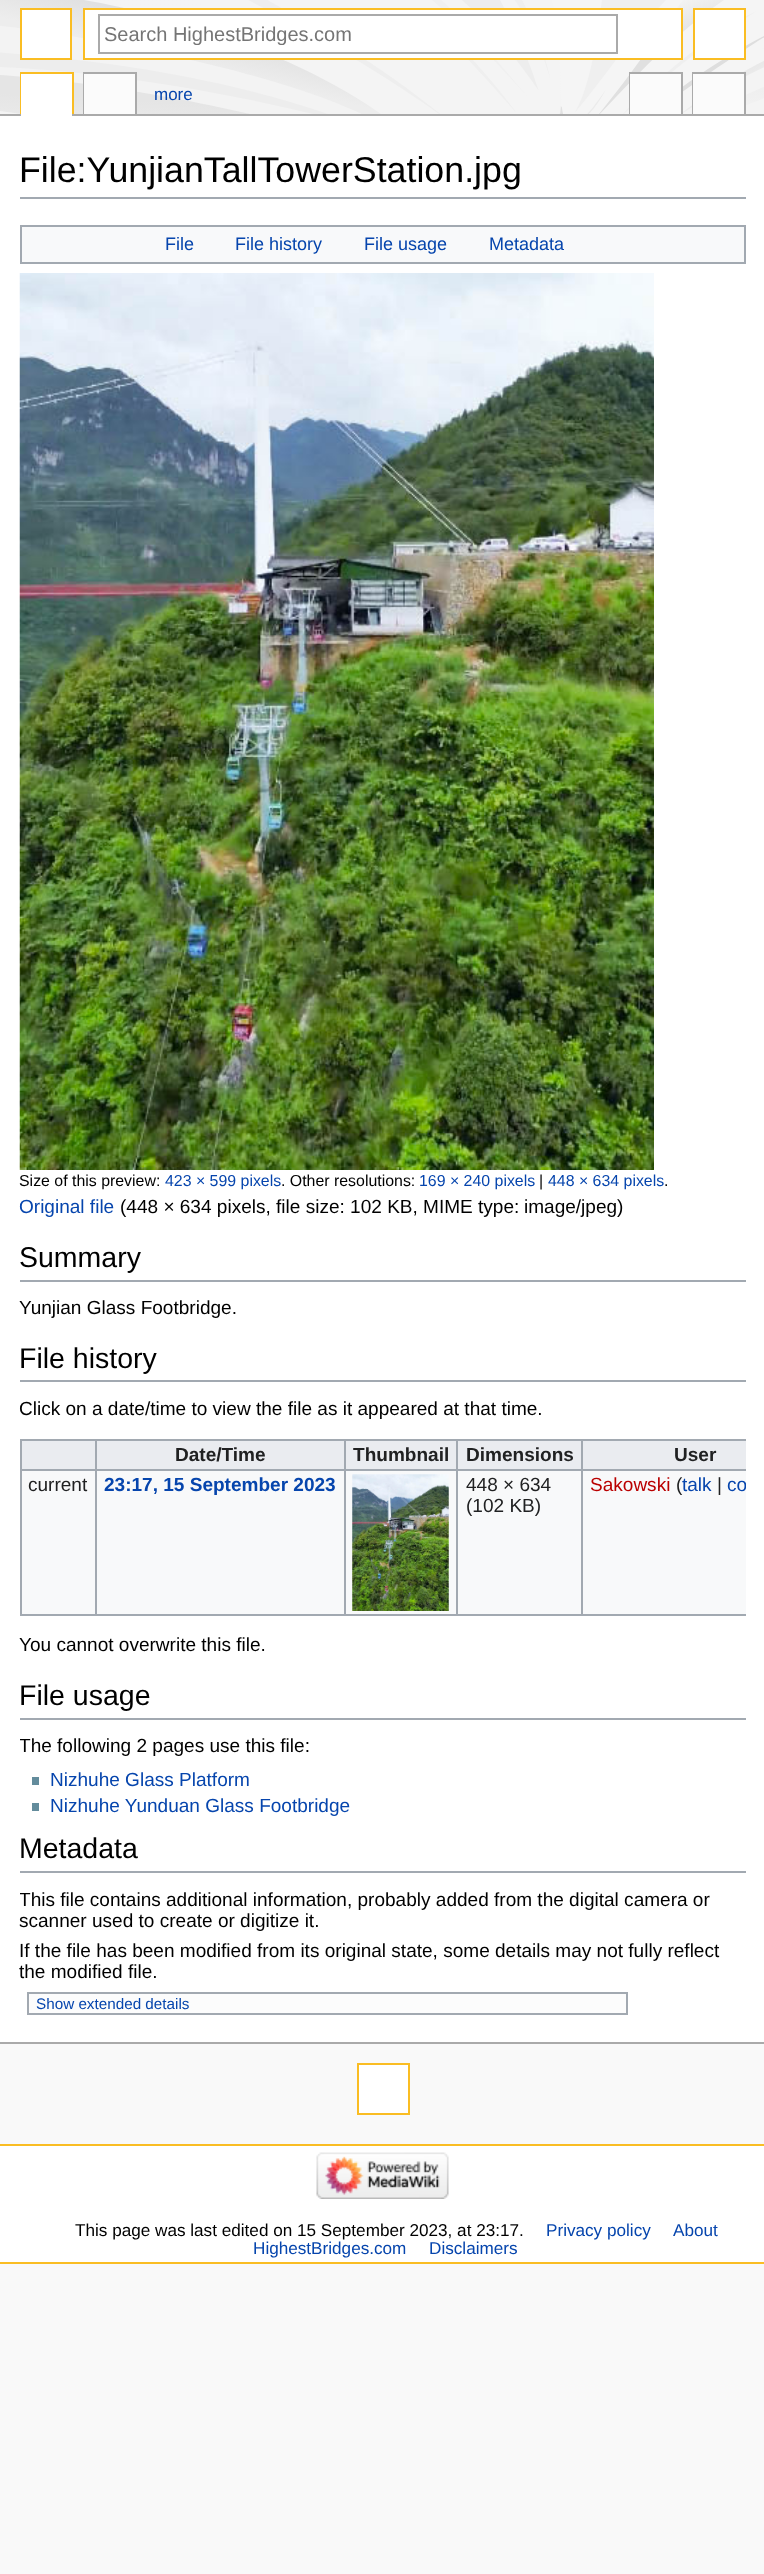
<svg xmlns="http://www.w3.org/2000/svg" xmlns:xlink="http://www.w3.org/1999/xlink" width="764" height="2574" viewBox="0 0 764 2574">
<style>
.cls-1{font:20px Liberation Sans;fill:#757575}
.cls-2{font:17px Liberation Sans;fill:#0645ad}
.cls-3{font:35.75px Liberation Sans;fill:#000000}
.cls-4{font:18px Liberation Sans;fill:#0645ad}
.cls-5{font:15.9px Liberation Sans;fill:#000000}
.cls-6{font:15.9px Liberation Sans;fill:#0645ad}
.cls-7{font:19.05px Liberation Sans;fill:#0645ad}
.cls-8{font:19.05px Liberation Sans;fill:#000000}
.cls-9{font:28.5px Liberation Sans;fill:#000000}
.cls-10{font:bold 19.05px Liberation Sans;fill:#202122}
.cls-11{font:19.05px Liberation Sans;fill:#202122}
.cls-12{font:bold 19.05px Liberation Sans;fill:#0645ad}
.cls-13{font:19.05px Liberation Sans;fill:#ba0000}
.cls-14{font:15.25px Liberation Sans;fill:#0645ad}
.cls-15{font:17.15px Liberation Sans;fill:#000000}
.cls-16{font:17.15px Liberation Sans;fill:#0645ad}
</style>
<defs>
<clipPath id="clip1"><rect x="104" y="23" width="489" height="22"/></clipPath>
<clipPath id="clip2"><rect x="20" y="203" width="726" height="1819"/></clipPath>
</defs>
<rect width="100%" height="100%" fill="#f9f9f9"/>
<image xlink:href="image0.png" x="0" y="0" width="764" height="114"/>
<rect fill="#ffffff" stroke="#fabd23" stroke-width="2" x="21" y="9" width="50" height="50"/>
<rect fill="#ffffff" stroke="#fabd23" stroke-width="2" x="84" y="9" width="598" height="50"/>
<rect fill="none" stroke="#aaaaaa" stroke-width="2" x="99" y="15" width="518" height="38"/>
<rect fill="#ffffff" stroke="#fabd23" stroke-width="2" x="694" y="9" width="51" height="50"/>
<rect fill="#fabd23" x="20" y="72" width="54" height="2"/>
<rect fill="#fabd23" x="72" y="72" width="2" height="44"/>
<rect fill="#fabd23" x="20" y="72" width="2" height="44"/>
<rect fill="#aaaaaa" x="83" y="72" width="54" height="2"/>
<rect fill="#aaaaaa" x="135" y="72" width="2" height="44"/>
<rect fill="#aaaaaa" x="83" y="72" width="2" height="44"/>
<rect fill="#aaaaaa" x="629" y="72" width="54" height="2"/>
<rect fill="#aaaaaa" x="681" y="72" width="2" height="44"/>
<rect fill="#aaaaaa" x="629" y="72" width="2" height="44"/>
<rect fill="#aaaaaa" x="692" y="72" width="54" height="2"/>
<rect fill="#aaaaaa" x="744" y="72" width="2" height="44"/>
<rect fill="#aaaaaa" x="692" y="72" width="2" height="44"/>
<rect fill="#aaaaaa" x="0" y="114" width="764" height="2"/>
<rect fill="#ffffff" x="21" y="74" width="51" height="42"/>
<rect fill="#fbfbfb" x="84" y="74" width="51" height="40"/>
<rect fill="#fbfbfb" x="630" y="74" width="51" height="40"/>
<rect fill="#fbfbfb" x="693" y="74" width="51" height="40"/>
<rect fill="#ffffff" stroke="#fabd23" stroke-width="2" x="358" y="2064" width="51" height="50"/>
<rect fill="#ffffff" x="0" y="116" width="764" height="1926"/>
<rect fill="#aaaaaa" x="0" y="2042" width="764" height="2"/>
<rect fill="#a2a9b1" x="20" y="197" width="726" height="2"/>
<rect fill="#f8f9fa" stroke="#a2a9b1" stroke-width="2" x="21" y="226" width="724" height="37"/>
<image xlink:href="image1.png" x="19" y="273" width="635" height="897"/>
<rect fill="#a2a9b1" x="20" y="1280" width="726" height="2"/>
<rect fill="#a2a9b1" x="20" y="1380" width="726" height="2"/>
<rect fill="#f8f9fa" x="22" y="1471" width="724" height="143"/>
<rect fill="#a2a9b1" x="20" y="1439" width="726" height="2"/>
<rect fill="#a2a9b1" x="20" y="1614" width="726" height="2"/>
<rect fill="#a2a9b1" x="20" y="1439" width="2" height="177"/>
<rect fill="#eaecf0" x="22" y="1441" width="73" height="28"/>
<rect fill="#eaecf0" x="97" y="1441" width="247" height="28"/>
<rect fill="#a2a9b1" x="581" y="1469" width="165" height="2"/>
<rect fill="#a2a9b1" x="581" y="1469" width="2" height="147"/>
<rect fill="#a2a9b1" x="456" y="1469" width="126" height="2"/>
<rect fill="#a2a9b1" x="456" y="1469" width="2" height="147"/>
<rect fill="#a2a9b1" x="344" y="1469" width="114" height="2"/>
<rect fill="#a2a9b1" x="344" y="1469" width="2" height="147"/>
<rect fill="#a2a9b1" x="95" y="1469" width="250" height="2"/>
<rect fill="#a2a9b1" x="95" y="1469" width="2" height="147"/>
<rect fill="#a2a9b1" x="20" y="1469" width="76" height="2"/>
<rect fill="#a2a9b1" x="95" y="1439" width="2" height="31"/>
<rect fill="#eaecf0" x="346" y="1441" width="110" height="28"/>
<rect fill="#a2a9b1" x="344" y="1439" width="2" height="31"/>
<rect fill="#eaecf0" x="458" y="1441" width="123" height="28"/>
<rect fill="#a2a9b1" x="456" y="1439" width="2" height="31"/>
<rect fill="#eaecf0" x="583" y="1441" width="163" height="28"/>
<rect fill="#a2a9b1" x="581" y="1439" width="2" height="31"/>
<image xlink:href="image2.png" x="352" y="1474" width="97" height="137"/>
<image xlink:href="image3.png" x="352" y="1474" width="97" height="137"/>
<rect fill="#a2a9b1" x="20" y="1718" width="726" height="2"/>
<rect fill="#638c9c" x="32" y="1777" width="7" height="8"/>
<rect fill="#638c9c" x="32" y="1803" width="7" height="8"/>
<rect fill="#a2a9b1" x="20" y="1871" width="726" height="2"/>
<rect fill="#fcfcfc" x="29" y="1994" width="597" height="19"/>
<rect fill="#a2a9b1" x="27" y="1992" width="600" height="2"/>
<rect fill="#a2a9b1" x="626" y="1992" width="2" height="23"/>
<rect fill="#a2a9b1" x="27" y="2013" width="600" height="2"/>
<rect fill="#a2a9b1" x="27" y="1992" width="2" height="23"/>
<rect fill="#ffffff" x="0" y="2146" width="764" height="116"/>
<rect fill="#fabd23" x="0" y="2144" width="764" height="2"/>
<rect fill="#fabd23" x="0" y="2262" width="764" height="2"/>
<image xlink:href="image4.png" x="316" y="2152" width="133" height="47"/>
<g clip-path="url(#clip1)">
<text class="cls-1" x="104" y="41">Search HighestBridges.com</text>
</g>
<text class="cls-2" x="154" y="100">more</text>
<text class="cls-3" x="19" y="182">File:YunjianTallTowerStation.jpg</text>
<text class="cls-4" x="165" y="250">File</text>
<text class="cls-4" x="235" y="250">File history</text>
<text class="cls-4" x="364" y="250">File usage</text>
<text class="cls-4" x="489" y="250">Metadata</text>
<text class="cls-5" x="19" y="1186">Size of this preview:</text>
<text class="cls-6" x="165" y="1186">423 × 599 pixels</text>
<text class="cls-5" x="281" y="1186">. Other resolutions:</text>
<text class="cls-6" x="419" y="1186">169 × 240 pixels</text>
<text class="cls-5" x="539" y="1186">|</text>
<text class="cls-6" x="548" y="1186">448 × 634 pixels</text>
<text class="cls-5" x="664" y="1186">.</text>
<text class="cls-7" x="19" y="1213">Original file</text>
<text class="cls-8" x="120" y="1213">(448 × 634 pixels, file size: 102 KB, MIME type:</text>
<text class="cls-8" x="524" y="1213">image/jpeg)</text>
<text class="cls-9" x="19" y="1267">Summary</text>
<text class="cls-8" x="19" y="1314">Yunjian Glass Footbridge.</text>
<text class="cls-9" x="19" y="1368">File history</text>
<text class="cls-8" x="19" y="1415">Click on a date/time to view the file as it appeared at that time.</text>
<text class="cls-10" x="175" y="1461">Date/Time</text>
<text class="cls-10" x="353" y="1461">Thumbnail</text>
<text class="cls-10" x="466" y="1461">Dimensions</text>
<text class="cls-10" x="674" y="1461">User</text>
<text class="cls-11" x="28" y="1491">current</text>
<text class="cls-12" x="104" y="1491">23:17, 15 September 2023</text>
<text class="cls-11"><tspan x="466" y="1491">448 × 634</tspan><tspan x="466" y="1512">(102 KB)</tspan></text>
<text class="cls-13" x="590" y="1491">Sakowski</text>
<text class="cls-11" x="676" y="1491">(</text>
<text class="cls-7" x="682" y="1491">talk</text>
<text class="cls-11" x="717" y="1491">|</text>
<g clip-path="url(#clip2)">
<text class="cls-7" x="727" y="1491">co</text>
</g>
<text class="cls-8" x="19" y="1651">You cannot overwrite this file.</text>
<text class="cls-9" x="19" y="1705">File usage</text>
<g clip-path="url(#clip2)">
<text class="cls-8" x="19" y="1752">The following 2 pages use this file:</text>
</g>
<text class="cls-7"><tspan x="50" y="1786">Nizhuhe Glass Platform</tspan><tspan x="50" y="1812">Nizhuhe Yunduan Glass Footbridge</tspan></text>
<text class="cls-9" x="19" y="1858">Metadata</text>
<g clip-path="url(#clip2)">
<text class="cls-8" x="19" y="1906">This file contains additional information, probably added from the digital camera or</text>
</g>
<text class="cls-8"><tspan x="19" y="1927">scanner used to create or digitize it.</tspan><tspan x="19" y="1957">If the file has been modified from its original state, some details may not fully reflect</tspan><tspan x="19" y="1978">the modified file.</tspan></text>
<text class="cls-14" x="36" y="2009">Show extended details</text>
<text class="cls-15" x="75" y="2236">This page was last edited on 15 September 2023, at 23:17.</text>
<text class="cls-16" x="546" y="2236">Privacy policy</text>
<text class="cls-16" x="673" y="2236">About</text>
<text class="cls-16" x="253" y="2254">HighestBridges.com</text>
<text class="cls-16" x="429" y="2254">Disclaimers</text>
</svg>
